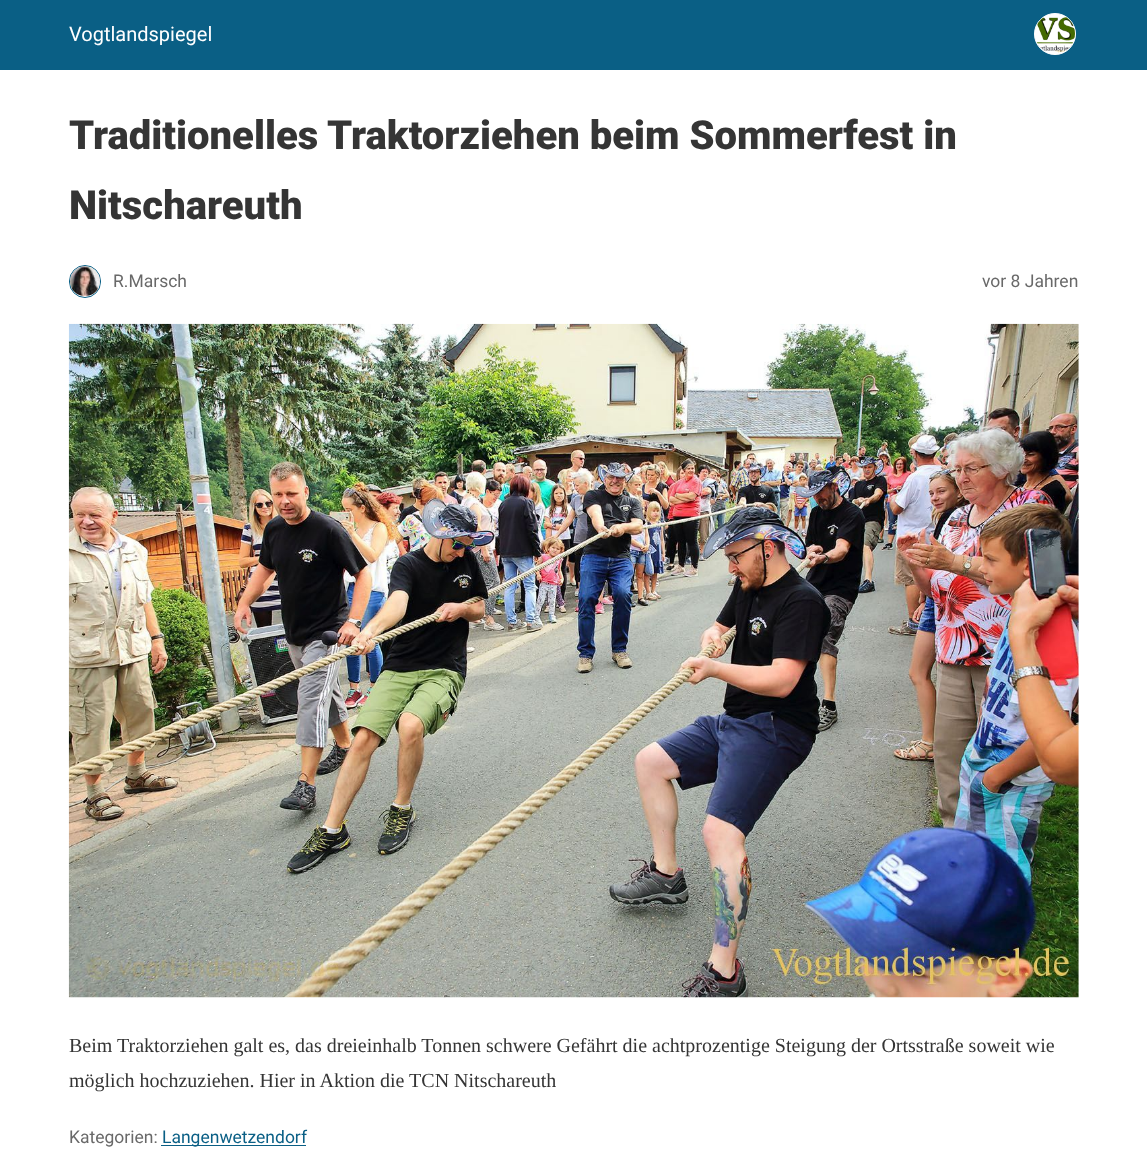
<svg xmlns="http://www.w3.org/2000/svg" xmlns:xlink="http://www.w3.org/1999/xlink" width="1147" height="1157" viewBox="0 0 1147 1157">
<style>
.cls-1{font:20px Roboto;fill:#ffffff}
.cls-2{font:900 40px Roboto;fill:#353535}
.cls-3{font:17.5px Roboto;fill:#696969}
.cls-4{font:20px Liberation Serif;fill:#353535}
.cls-5{font:17.5px Roboto;fill:#0a5f85}
</style>
<rect width="100%" height="100%" fill="#ffffff"/>
<rect fill="#0a5f85" x="0" y="0" width="1147" height="70"/>
<circle fill="#ffffff" stroke="#ffffff" cx="1055" cy="34" r="20.5"/>
<image xlink:href="image0.png" x="1036" y="17" width="39" height="36"/>
<rect fill="none" stroke="#0a5f85" x="69.5" y="265.5" width="31" height="32" rx="15.5"/>
<image xlink:href="image1.png" x="70" y="266" width="30" height="30"/>
<image xlink:href="image2.png" x="68" y="323" width="1011" height="675"/>
<rect fill="#0a5f85" x="161" y="1145" width="145" height="1"/>
<text class="cls-1" x="69" y="41">Vogtlandspiegel</text>
<text class="cls-2"><tspan x="69" y="149">Traditionelles Traktorziehen beim Sommerfest in</tspan><tspan x="69" y="219">Nitschareuth</tspan></text>
<text class="cls-3" x="113" y="287">R.Marsch</text>
<text class="cls-3" x="982" y="287">vor 8 Jahren</text>
<text class="cls-4"><tspan x="69" y="1052">Beim Traktorziehen galt es, das dreieinhalb Tonnen schwere Gefährt die achtprozentige Steigung der Ortsstraße soweit wie</tspan><tspan x="69" y="1087">möglich hochzuziehen. Hier in Aktion die TCN Nitschareuth</tspan></text>
<text class="cls-3" x="69" y="1143">Kategorien:</text>
<text class="cls-5" x="162" y="1143">Langenwetzendorf</text>
</svg>
